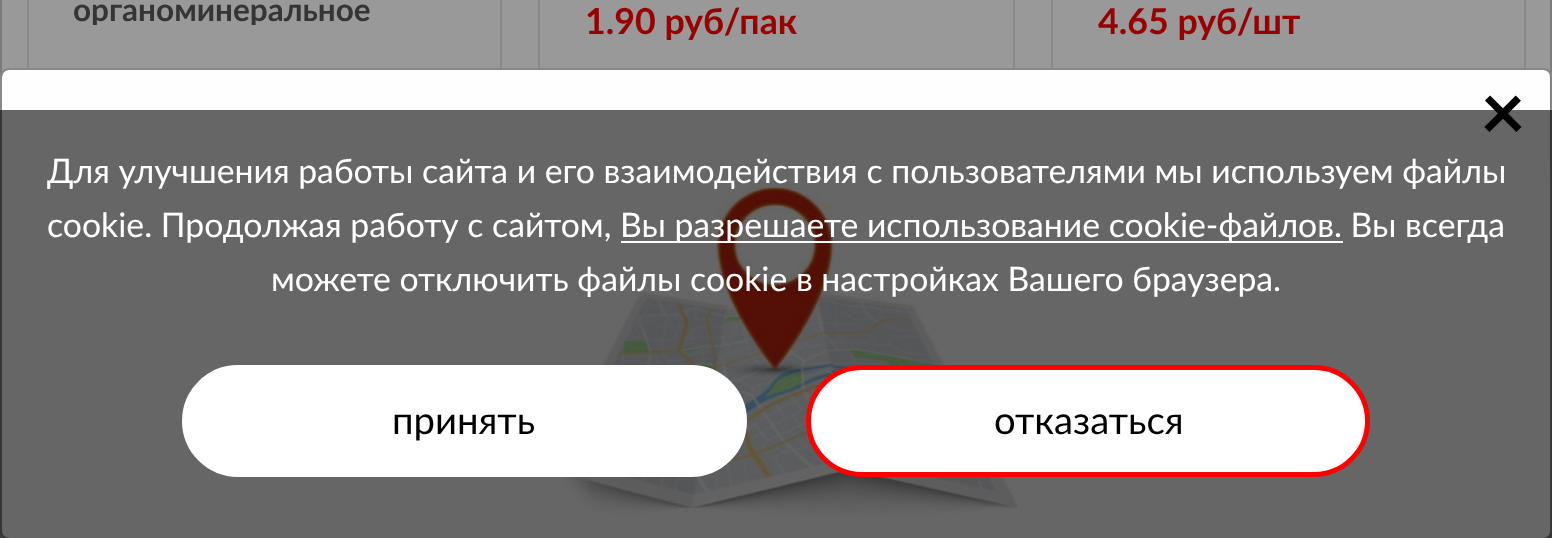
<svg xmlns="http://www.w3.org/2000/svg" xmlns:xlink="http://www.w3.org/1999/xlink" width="1552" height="538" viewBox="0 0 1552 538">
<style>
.cls-1{font:bold 31.5px Lato;fill:#353535}
.cls-2{font:bold 35.75px Lato;fill:#990000}
.cls-3{font:bold 79px Lato;fill:#000000}
.cls-4{font:33.75px Lato;fill:#ffffff}
.cls-5{font:38.25px Lato;fill:#000000}
</style>
<defs>
<clipPath id="clip1"><rect x="74" y="0" width="381" height="25"/></clipPath>
</defs>
<rect width="100%" height="100%" fill="#949494"/>
<rect fill="#525252" filter="blur(17px)" x="0" y="-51" width="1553" height="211"/>
<rect fill="#999999" x="2" y="0" width="1548" height="77"/>
<rect fill="#7b7b7b" x="1550" y="0" width="2" height="160"/>
<rect fill="#7b7b7b" x="0" y="0" width="2" height="77"/>
<rect fill="none" stroke="#898989" stroke-width="2" x="28" y="-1" width="473" height="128"/>
<rect fill="none" stroke="#898989" stroke-width="2" x="539" y="-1" width="475" height="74"/>
<rect fill="none" stroke="#898989" stroke-width="2" x="1052" y="-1" width="473" height="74"/>
<rect fill="#fefefe" x="2" y="70" width="1548" height="468" rx="7"/>
<rect fill="none" stroke="#888888" stroke-width="2" x="1" y="69" width="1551" height="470" rx="8"/>
<image xlink:href="image0.png" x="548" y="181" width="470" height="335"/>
<g clip-path="url(#clip1)">
<text class="cls-1" x="73" y="21">органоминеральное</text>
</g>
<text class="cls-2" x="585" y="34">1.90 руб/пак</text>
<text class="cls-2" x="1098" y="34">4.65 руб/шт</text>
<text class="cls-3" x="1480" y="140">×</text>
<rect fill="#000000" fill-opacity="0.6" x="0" y="110" width="1552" height="428"/>
<text class="cls-4"><tspan x="47" y="183">Для улучшения работы сайта и его взаимодействия с пользователями мы используем файлы</tspan><tspan x="47" y="237">cookie. Продолжая работу с сайтом,</tspan></text>
<rect fill="#ffffff" x="621" y="241" width="722" height="2"/>
<text class="cls-4" x="620" y="237">Вы разрешаете использование cookie-файлов. Вы всегда</text>
<text class="cls-4" x="271" y="291">можете отключить файлы cookie в настройках Вашего браузера.</text>
<rect fill="#ffffff" stroke="#ffffff" stroke-width="5" x="184.5" y="367.5" width="560" height="107" rx="53.5"/>
<text class="cls-5" x="392" y="434">принять</text>
<rect fill="#ffffff" stroke="#ff0000" stroke-width="5" x="808.5" y="367.5" width="559" height="107" rx="53.5"/>
<text class="cls-5" x="994" y="434">отказаться</text>
</svg>
